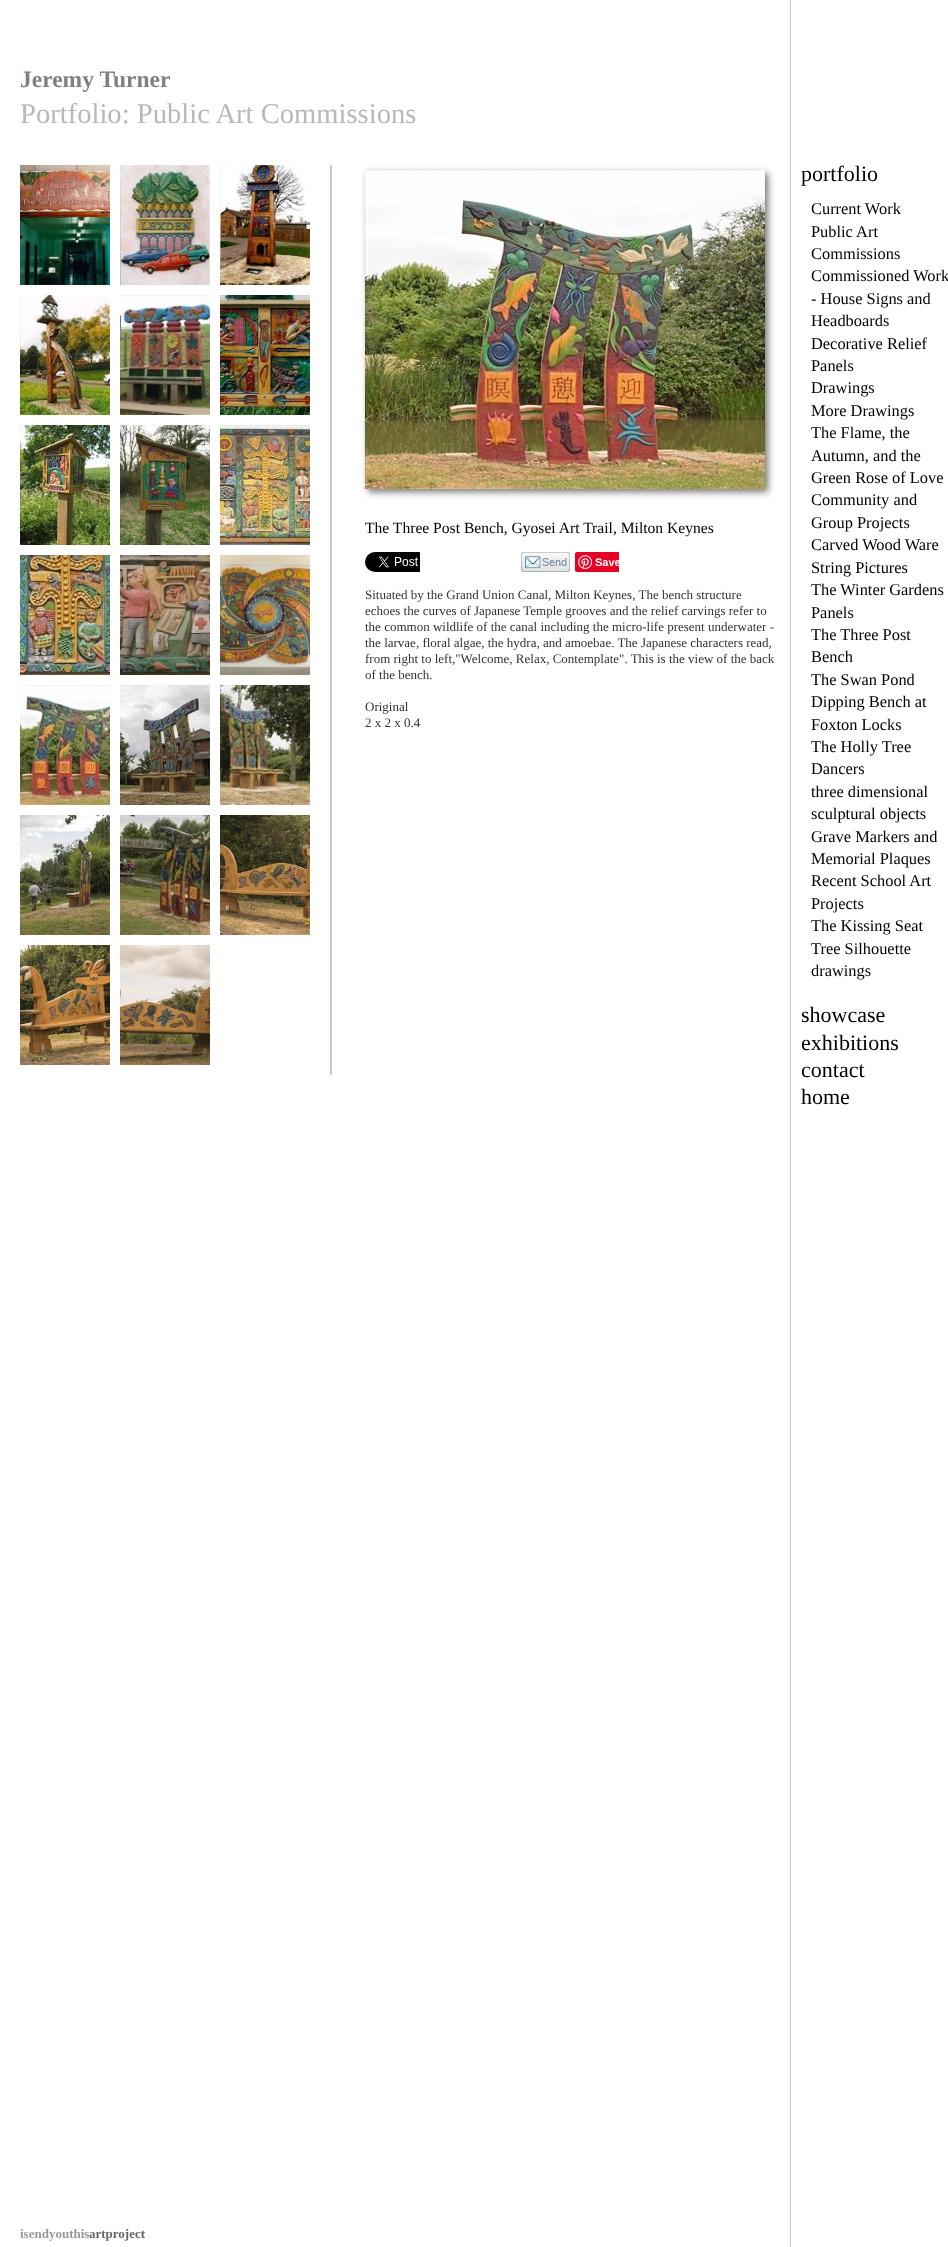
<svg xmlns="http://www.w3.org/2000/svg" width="948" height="2247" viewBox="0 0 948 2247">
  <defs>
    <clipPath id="clip1"><path d="M575 552h44v20H575z"/></clipPath>
  </defs>
  <rect width="100%" height="100%" fill="#fff"/>
  <path d="M330 165h2v910H330z" fill="#ccc"/>
  <image x="20" y="165" width="90" height="120" href="img/1.png"/>
  <image x="120" y="165" width="90" height="120" href="img/2.png"/>
  <image x="220" y="165" width="90" height="120" href="img/3.png"/>
  <image x="20" y="295" width="90" height="120" href="img/4.png"/>
  <image x="120" y="295" width="90" height="120" href="img/5.png"/>
  <image x="220" y="295" width="90" height="120" href="img/6.png"/>
  <image x="20" y="425" width="90" height="120" href="img/7.png"/>
  <image x="120" y="425" width="90" height="120" href="img/8.png"/>
  <image x="220" y="425" width="90" height="120" href="img/9.png"/>
  <image x="20" y="555" width="90" height="120" href="img/10.png"/>
  <image x="120" y="555" width="90" height="120" href="img/11.png"/>
  <image x="220" y="555" width="90" height="120" href="img/12.png"/>
  <image x="20" y="685" width="90" height="120" href="img/13.png"/>
  <image x="120" y="685" width="90" height="120" href="img/14.png"/>
  <image x="220" y="685" width="90" height="120" href="img/15.png"/>
  <image x="20" y="815" width="90" height="120" href="img/16.png"/>
  <image x="120" y="815" width="90" height="120" href="img/17.png"/>
  <image x="220" y="815" width="90" height="120" href="img/18.png"/>
  <image x="20" y="945" width="90" height="120" href="img/19.png"/>
  <image x="120" y="945" width="90" height="120" href="img/20.png"/>
  <path d="M368 173h400v319H368z" fill="#777" filter="blur(3.5px)"/>
  <image x="365" y="170" width="400" height="319" href="img/21.png"/>
  <image x="365" y="552" width="55" height="20" href="img/22.png"/>
  <image x="521" y="552" width="49" height="20" href="img/23.png"/>
  <path d="M577 552H619V572H577C576 572 575 571 575 570V554C575 553 576 552 577 552Z" fill="#e60023"/>
  <image x="578" y="555" width="14" height="14" href="img/24.png"/>
  <path d="M790 0h1v2247H790z" fill="#ccc"/>
  <text x="20" y="87" font-family="Liberation Serif" font-size="23.5" font-weight="bold" fill="#808080">Jeremy Turner</text>
  <text x="20" y="123" font-family="Liberation Serif" font-size="28.6" fill="#b8b8b8">Portfolio: Public Art Commissions</text>
  <text x="365" y="533" font-family="Liberation Serif" font-size="15.6" fill="#000">The Three Post Bench, Gyosei Art Trail, Milton Keynes</text>
  <g clip-path="url(#clip1)">
    <text x="595" y="566" font-family="Liberation Sans" font-size="11" font-weight="bold" fill="#fff">Save</text>
  </g>
  <g font-family="Liberation Serif" font-size="13" fill="#333">
    <text x="365" y="599">Situated by the Grand Union Canal, Milton Keynes, The bench structure</text>
    <text x="365" y="615">echoes the curves of Japanese Temple grooves and the relief carvings refer to</text>
    <text x="365" y="631">the common wildlife of the canal including the micro-life present underwater -</text>
    <text x="365" y="647">the larvae, floral algae, the hydra, and amoebae. The Japanese characters read,</text>
    <text x="365" y="663">from right to left,"Welcome, Relax, Contemplate". This is the view of the back</text>
    <text x="365" y="679">of the bench.</text>
    <text x="365" y="711">Original</text>
    <text x="365" y="727">2 x 2 x 0.4</text>
  </g>
  <text x="20" y="2238" font-family="Liberation Serif" font-size="13" font-weight="bold" fill="#999">isendyouthis</text>
  <text x="89" y="2238" font-family="Liberation Serif" font-size="13" font-weight="bold" fill="#666">artproject</text>
  <text x="801" y="181" font-family="Liberation Serif" font-size="22" fill="#000">portfolio</text>
  <g font-family="Liberation Serif" font-size="16.4" fill="#000">
    <text x="811" y="214">Current Work</text>
    <text x="811" y="237">Public Art</text>
    <text x="811" y="259">Commissions</text>
    <text x="811" y="281">Commissioned Work</text>
    <text x="811" y="304">- House Signs and</text>
    <text x="811" y="326">Headboards</text>
    <text x="811" y="349">Decorative Relief</text>
    <text x="811" y="371">Panels</text>
    <text x="811" y="393">Drawings</text>
    <text x="811" y="416">More Drawings</text>
    <text x="811" y="438">The Flame, the</text>
    <text x="811" y="461">Autumn, and the</text>
    <text x="811" y="483">Green Rose of Love</text>
    <text x="811" y="505">Community and</text>
    <text x="811" y="528">Group Projects</text>
    <text x="811" y="550">Carved Wood Ware</text>
    <text x="811" y="573">String Pictures</text>
    <text x="811" y="595">The Winter Gardens</text>
    <text x="811" y="618">Panels</text>
    <text x="811" y="640">The Three Post</text>
    <text x="811" y="662">Bench</text>
    <text x="811" y="685">The Swan Pond</text>
    <text x="811" y="707">Dipping Bench at</text>
    <text x="811" y="730">Foxton Locks</text>
    <text x="811" y="752">The Holly Tree</text>
    <text x="811" y="774">Dancers</text>
    <text x="811" y="797">three dimensional</text>
    <text x="811" y="819">sculptural objects</text>
    <text x="811" y="842">Grave Markers and</text>
    <text x="811" y="864">Memorial Plaques</text>
    <text x="811" y="886">Recent School Art</text>
    <text x="811" y="909">Projects</text>
    <text x="811" y="931">The Kissing Seat</text>
    <text x="811" y="954">Tree Silhouette</text>
    <text x="811" y="976">drawings</text>
  </g>
  <g font-family="Liberation Serif" font-size="22" fill="#000">
    <text x="801" y="1022">showcase</text>
    <text x="801" y="1050">exhibitions</text>
    <text x="801" y="1077">contact</text>
    <text x="801" y="1104">home</text>
  </g>
</svg>
